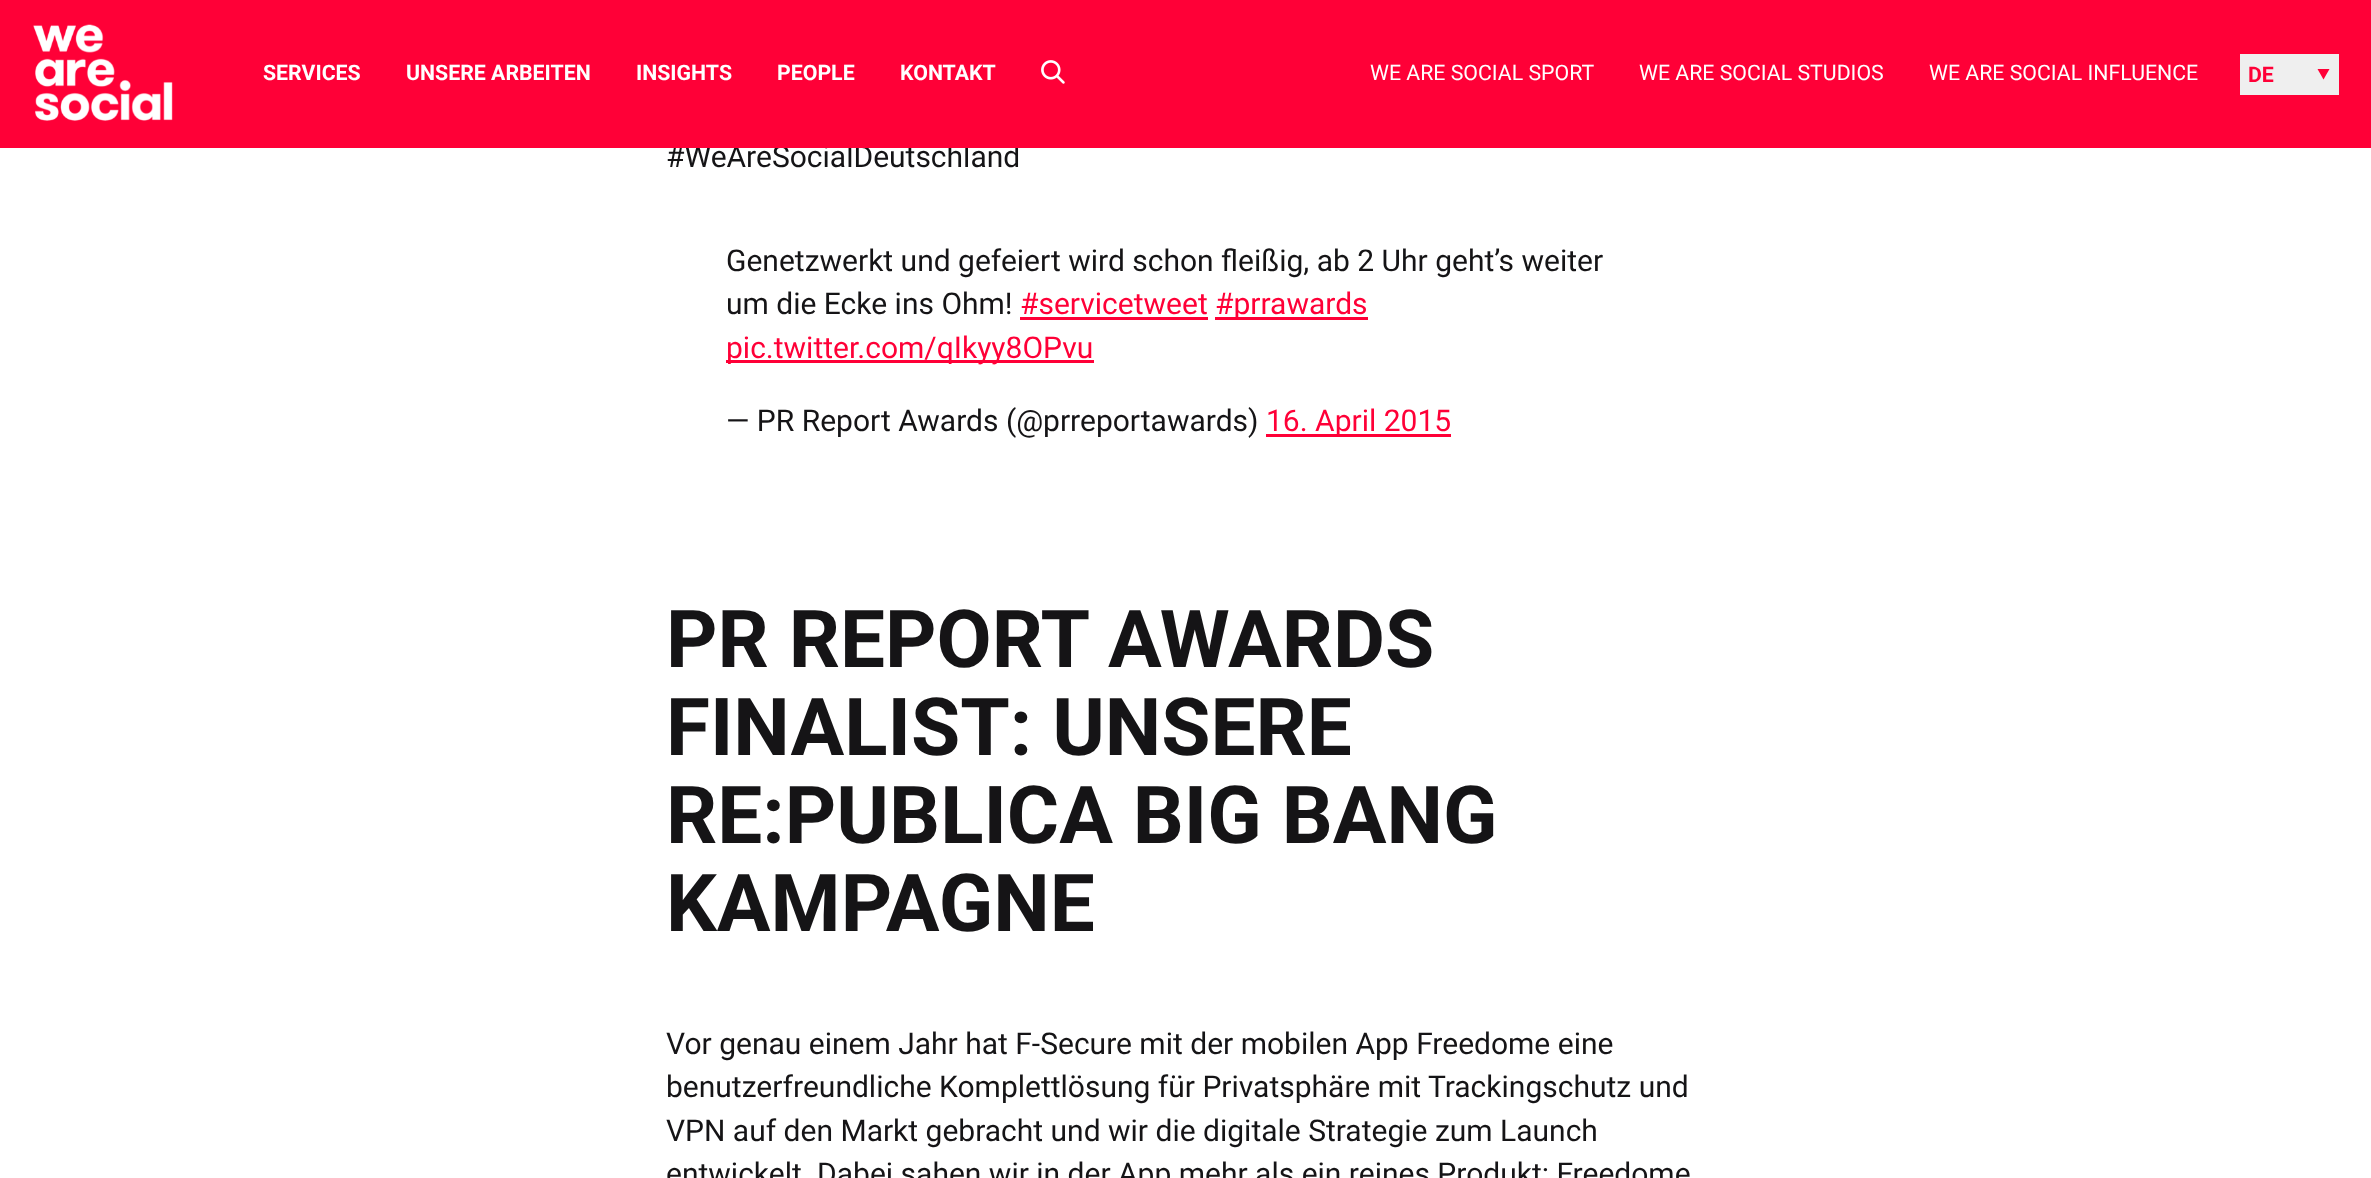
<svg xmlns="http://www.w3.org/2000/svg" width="2371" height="1178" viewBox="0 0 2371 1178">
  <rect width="100%" height="100%" fill="#fff"/>
  <path d="M1020 317h188v3H1020z" fill="#ff0037"/>
  <path d="M1215 317h153v3H1215z" fill="#ff0037"/>
  <path d="M726 360h368v3H726z" fill="#ff0037"/>
  <path d="M1266 434h185v3H1266z" fill="#ff0037"/>
  <text x="666" y="167" font-family="Roboto" font-size="30" fill="#151416">#WeAreSocialDeutschland</text>
  <path d="M0 0h2371v148H0z" fill="#ff0037"/>
  <path d="M2240 54h99v41H2240z" fill="#efefef"/>
  <path d="M2317.5 69H2329.5L2323.5 79.5Z" fill="#ff0037"/>
  <text x="2248" y="82" font-family="Roboto" font-size="21.3" font-weight="bold" fill="#ff0037">DE</text>
  <g font-family="Roboto" font-size="21.3" fill="#fff">
    <text x="1929" y="80">WE ARE SOCIAL INFLUENCE</text>
    <text x="1639" y="80">WE ARE SOCIAL STUDIOS</text>
    <text x="1370" y="80">WE ARE SOCIAL SPORT</text>
  </g>
  <image x="1041" y="60" width="24" height="24" href="img/2.png"/>
  <g font-family="Roboto" font-size="21.3" font-weight="bold" fill="#fff">
    <text x="900" y="80">KONTAKT</text>
    <text x="777" y="80">PEOPLE</text>
    <text x="636" y="80">INSIGHTS</text>
    <text x="406" y="80">UNSERE ARBEITEN</text>
    <text x="263" y="80">SERVICES</text>
  </g>
  <image x="33" y="24" width="140" height="97" href="img/1.png"/>
  <g font-family="Roboto" font-size="30" fill="#151416">
    <text x="726" y="271">Genetzwerkt und gefeiert wird schon fleißig, ab 2 Uhr geht’s weiter</text>
    <text x="726" y="314">um die Ecke ins Ohm!</text>
  </g>
  <g font-family="Roboto" font-size="30" fill="#ff0037">
    <text x="1020" y="314">#servicetweet</text>
    <text x="1215" y="314">#prrawards</text>
    <text x="726" y="358">pic.twitter.com/qIkyy8OPvu</text>
  </g>
  <text x="726" y="431" font-family="Roboto" font-size="30" fill="#151416">— PR Report Awards (@prreportawards)</text>
  <text x="1266" y="431" font-family="Roboto" font-size="30" fill="#ff0037">16. April 2015</text>
  <g font-family="Roboto" font-size="80" font-weight="bold" fill="#151416">
    <text x="666" y="667">PR REPORT AWARDS</text>
    <text x="666" y="755">FINALIST: UNSERE</text>
    <text x="666" y="843">RE:PUBLICA BIG BANG</text>
    <text x="666" y="931">KAMPAGNE</text>
  </g>
  <g font-family="Roboto" font-size="30" fill="#151416">
    <text x="666" y="1054">Vor genau einem Jahr hat F-Secure mit der mobilen App Freedome eine</text>
    <text x="666" y="1097">benutzerfreundliche Komplettlösung für Privatsphäre mit Trackingschutz und</text>
    <text x="666" y="1141">VPN auf den Markt gebracht und wir die digitale Strategie zum Launch</text>
    <text x="666" y="1184">entwickelt. Dabei sahen wir in der App mehr als ein reines Produkt: Freedome</text>
  </g>
</svg>
